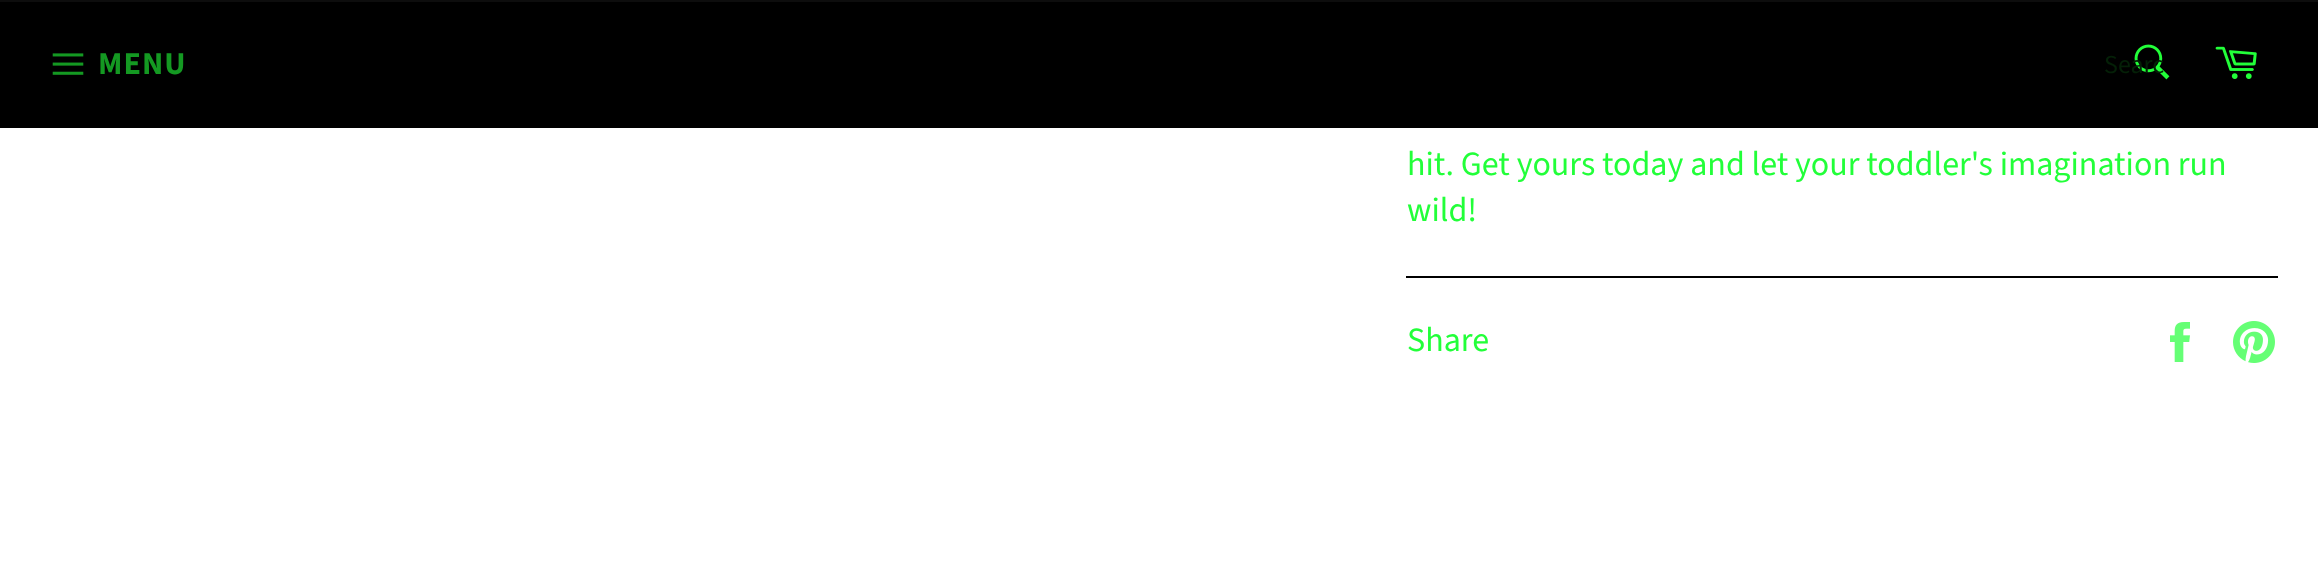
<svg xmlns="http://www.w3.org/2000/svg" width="2318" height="579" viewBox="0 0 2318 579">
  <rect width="100%" height="100%" fill="#fff"/>
  <path d="M0 2h2318v126H0z" fill="#000"/>
  <path d="M0 0h2318v2H0z" fill="#0d0d0d"/>
  <image x="52" y="53" width="32" height="22" href="img/1.png"/>
  <image x="2134" y="44" width="36" height="36" href="img/2.png"/>
  <image x="2215" y="46" width="42" height="33" href="img/3.png"/>
  <path d="M1406 276h872v2H1406z" fill="#000"/>
  <image x="2170" y="322" width="20" height="40" href="img/4.png"/>
  <image x="2233" y="321" width="42" height="42" href="img/5.png"/>
  <text x="98" y="74" font-family="Source Sans Pro" font-size="32" font-weight="bold" letter-spacing="1" fill="#149922">MENU</text>
  <text x="2104" y="73" font-family="Source Sans Pro" font-size="26" fill="#042007">Searc</text>
  <g font-family="Source Sans Pro" font-size="34" fill="#22ff39">
    <text x="1407" y="175">hit. Get yours today and let your toddler's imagination run</text>
    <text x="1407" y="221">wild!</text>
    <text x="1407" y="351">Share</text>
  </g>
</svg>
